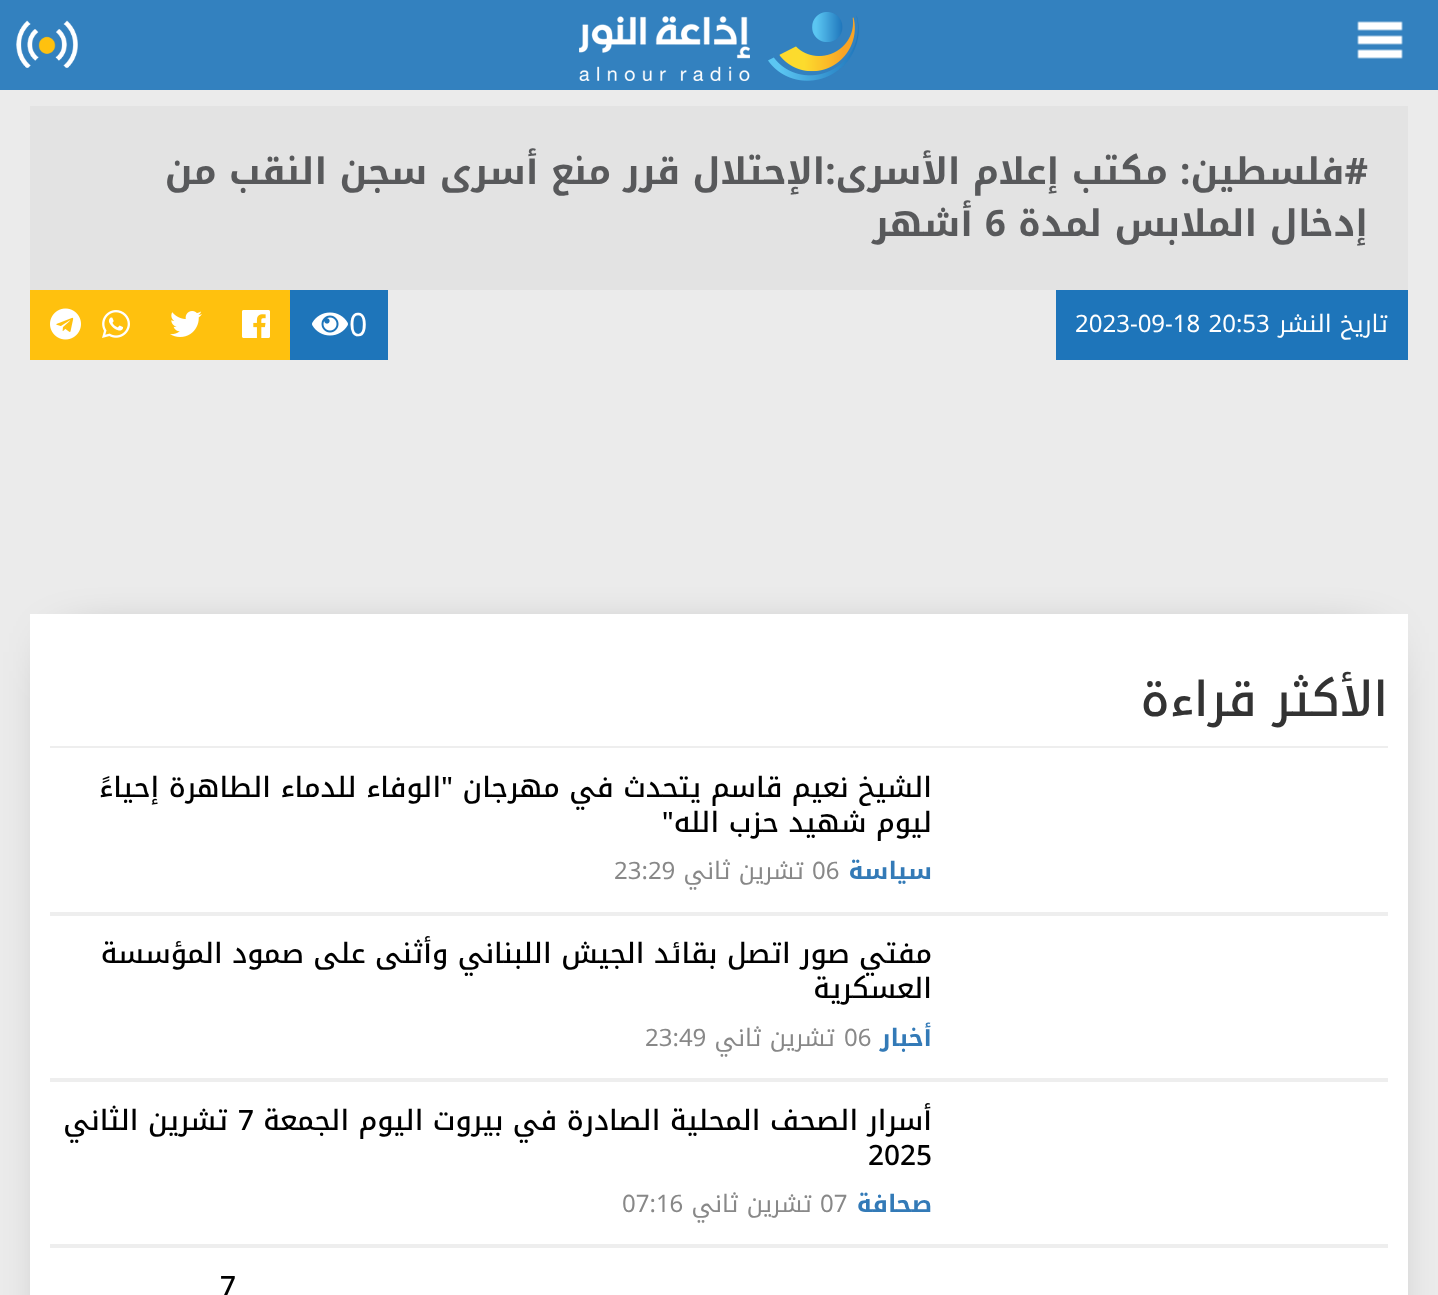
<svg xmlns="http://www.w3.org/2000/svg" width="1438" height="1295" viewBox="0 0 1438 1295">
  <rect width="100%" height="100%" fill="#ebebeb"/>
  <path d="M0 0h1438v90H0z" fill="#3381bf"/>
  <image x="1357" y="21" width="46" height="38" href="img/1.png"/>
  <image x="579" y="12" width="280" height="69" href="img/2.png"/>
  <image x="16" y="20" width="62" height="48" href="img/3.png"/>
  <path d="M30 106h1378v184H30z" fill="#e3e3e3"/>
  <path d="M1056 290h352v70H1056z" fill="#1e75ba"/>
  <path d="M30 290h260v70H30z" fill="#ffc10e"/>
  <image x="242" y="310" width="28" height="28" href="img/4.png"/>
  <path d="M290 290h98v70H290z" fill="#1e75ba"/>
  <image x="312" y="312" width="36" height="24" href="img/5.png"/>
  <image x="170" y="311" width="32" height="26" href="img/6.png"/>
  <image x="102" y="310" width="28" height="28" href="img/7.png"/>
  <image x="50" y="308" width="31" height="32" href="img/8.png"/>
  <path d="M68 652h1302v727H68z" fill="#00000099" filter="blur(28px)"/>
  <path d="M30 614h1378v681H30z" fill="#fff"/>
  <path d="M50 746h1338v2H50z" fill="#eee"/>
  <path d="M50 912h1338v4H50z" fill="#eee"/>
  <path d="M50 1078h1338v4H50z" fill="#eee"/>
  <path d="M50 1244h1338v4H50z" fill="#eee"/>
  <g font-family="Noto Kufi Arabic" font-size="36.4" font-weight="bold" direction="rtl" fill="#58595b">
    <text x="1368" y="184">#فلسطين: مكتب إعلام الأسرى:الإحتلال قرر منع أسرى سجن النقب من</text>
    <text x="1368" y="236">إدخال الملابس لمدة</text>
  </g>
  <text x="985" y="236" font-family="Noto Kufi Arabic" font-size="36.4" font-weight="bold" fill="#58595b">6</text>
  <text x="973" y="236" font-family="Noto Kufi Arabic" font-size="36.4" font-weight="bold" direction="rtl" fill="#58595b">أشهر</text>
  <text x="1388" y="332" font-family="Noto Kufi Arabic" font-size="24" direction="rtl" fill="#fff">تاريخ النشر</text>
  <text x="1075" y="332" font-family="Noto Kufi Arabic" font-size="24" fill="#fff">2023-09-18 20:53</text>
  <text x="349" y="336" font-family="Noto Kufi Arabic" font-size="32" fill="#fff">0</text>
  <text x="1388" y="716" font-family="Noto Kufi Arabic" font-size="48" font-weight="500" direction="rtl" fill="#333">الأكثر قراءة</text>
  <g font-family="Noto Kufi Arabic" font-size="28" font-weight="500" direction="rtl" fill="#000">
    <text x="932" y="797">الشيخ نعيم قاسم يتحدث في مهرجان "الوفاء للدماء الطاهرة إحياءً</text>
    <text x="932" y="832">ليوم شهيد حزب الله"</text>
  </g>
  <text x="932" y="879" font-family="Noto Kufi Arabic" font-size="24" font-weight="bold" direction="rtl" fill="#337ab7">سياسة</text>
  <text x="812" y="879" font-family="Noto Kufi Arabic" font-size="24" fill="#888">06</text>
  <text x="804" y="879" font-family="Noto Kufi Arabic" font-size="24" direction="rtl" fill="#888">تشرين ثاني</text>
  <text x="614" y="879" font-family="Noto Kufi Arabic" font-size="24" fill="#888">23:29</text>
  <g font-family="Noto Kufi Arabic" font-size="28" font-weight="500" direction="rtl" fill="#000">
    <text x="932" y="963">مفتي صور اتصل بقائد الجيش اللبناني وأثنى على صمود المؤسسة</text>
    <text x="932" y="998">العسكرية</text>
  </g>
  <text x="932" y="1046" font-family="Noto Kufi Arabic" font-size="24" font-weight="bold" direction="rtl" fill="#337ab7">أخبار</text>
  <text x="844" y="1046" font-family="Noto Kufi Arabic" font-size="24" fill="#888">06</text>
  <text x="835" y="1046" font-family="Noto Kufi Arabic" font-size="24" direction="rtl" fill="#888">تشرين ثاني</text>
  <text x="645" y="1046" font-family="Noto Kufi Arabic" font-size="24" fill="#888">23:49</text>
  <text x="932" y="1130" font-family="Noto Kufi Arabic" font-size="28" font-weight="500" direction="rtl" fill="#000">أسرار الصحف المحلية الصادرة في بيروت اليوم الجمعة</text>
  <text x="238" y="1130" font-family="Noto Kufi Arabic" font-size="28" font-weight="500" fill="#000">7</text>
  <text x="228" y="1130" font-family="Noto Kufi Arabic" font-size="28" font-weight="500" direction="rtl" fill="#000">تشرين الثاني</text>
  <text x="868" y="1165" font-family="Noto Kufi Arabic" font-size="28" font-weight="500" fill="#000">2025</text>
  <text x="932" y="1212" font-family="Noto Kufi Arabic" font-size="24" font-weight="bold" direction="rtl" fill="#337ab7">صحافة</text>
  <text x="820" y="1212" font-family="Noto Kufi Arabic" font-size="24" fill="#888">07</text>
  <text x="812" y="1212" font-family="Noto Kufi Arabic" font-size="24" direction="rtl" fill="#888">تشرين ثاني</text>
  <text x="622" y="1212" font-family="Noto Kufi Arabic" font-size="24" fill="#888">07:16</text>
  <text x="220" y="1296" font-family="Noto Kufi Arabic" font-size="28" font-weight="500" fill="#000">7</text>
</svg>
